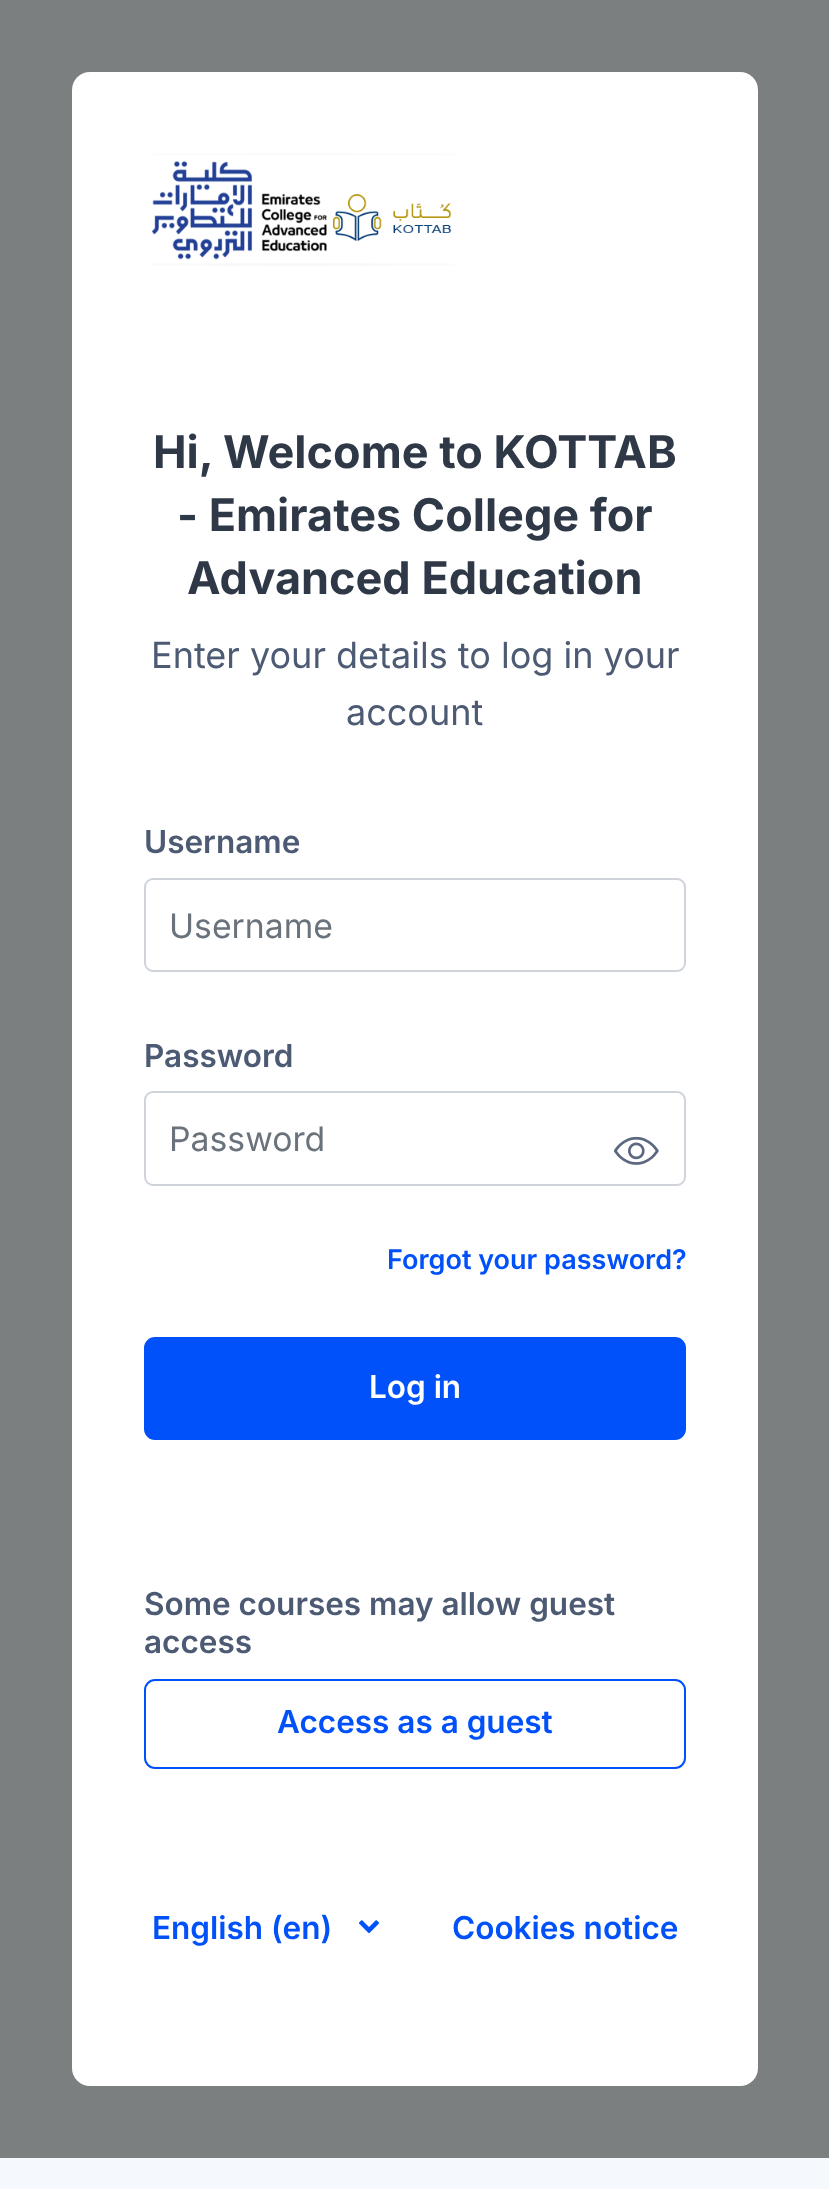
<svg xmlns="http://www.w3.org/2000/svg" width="829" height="2189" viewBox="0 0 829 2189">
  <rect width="100%" height="100%" fill="#f5f9fd"/>
  <path d="M0 0h829v2158H0z" fill="#7c7f80"/>
  <rect x="72" y="72" width="686" height="2014" rx="18" fill="#fff"/>
  <image x="150" y="153" width="305" height="113" href="img/1.png"/>
  <rect x="145" y="879" width="540" height="92" rx="8" fill="none" stroke="#ced4da" stroke-width="2"/>
  <rect x="145" y="1092" width="540" height="93" rx="8" fill="none" stroke="#ced4da" stroke-width="2"/>
  <image x="613" y="1136" width="46" height="29" href="img/2.png"/>
  <rect x="145" y="1338" width="540" height="101" rx="10" fill="#0051f9" stroke="#0051f9" stroke-width="2"/>
  <rect x="145" y="1680" width="540" height="88" rx="10" fill="none" stroke="#0051f9" stroke-width="2"/>
  <image x="358" y="1920" width="22" height="14" href="img/3.png"/>
  <g font-family="Inter" font-size="45" font-weight="bold" fill="#2f3847">
    <text x="153" y="468">Hi, Welcome to KOTTAB</text>
    <text x="177" y="531">- Emirates College for</text>
    <text x="187" y="594">Advanced Education</text>
  </g>
  <g font-family="Inter" font-size="36" fill="#4c5a73">
    <text x="151" y="668">Enter your details to log in your</text>
    <text x="346" y="725">account</text>
  </g>
  <text x="144" y="853" font-family="Inter" font-size="31.5" font-weight="600" fill="#4c5a73">Username</text>
  <text x="169" y="938" font-family="Inter" font-size="33.75" fill="#6a737b">Username</text>
  <text x="144" y="1067" font-family="Inter" font-size="31.5" font-weight="600" fill="#4c5a73">Password</text>
  <text x="169" y="1151" font-family="Inter" font-size="33.75" fill="#6a737b">Password</text>
  <text x="387" y="1269" font-family="Inter" font-size="27" font-weight="600" fill="#0051f9">Forgot your password?</text>
  <text x="369" y="1398" font-family="Inter" font-size="31.5" font-weight="600" fill="#fff">Log in</text>
  <g font-family="Inter" font-size="31.5" font-weight="600" fill="#4c5a73">
    <text x="144" y="1615">Some courses may allow guest</text>
    <text x="144" y="1653">access</text>
  </g>
  <g font-family="Inter" font-size="31.5" font-weight="600" fill="#0051f9">
    <text x="277" y="1733">Access as a guest</text>
    <text x="152" y="1939">English (en)</text>
    <text x="452" y="1939">Cookies notice</text>
  </g>
</svg>
